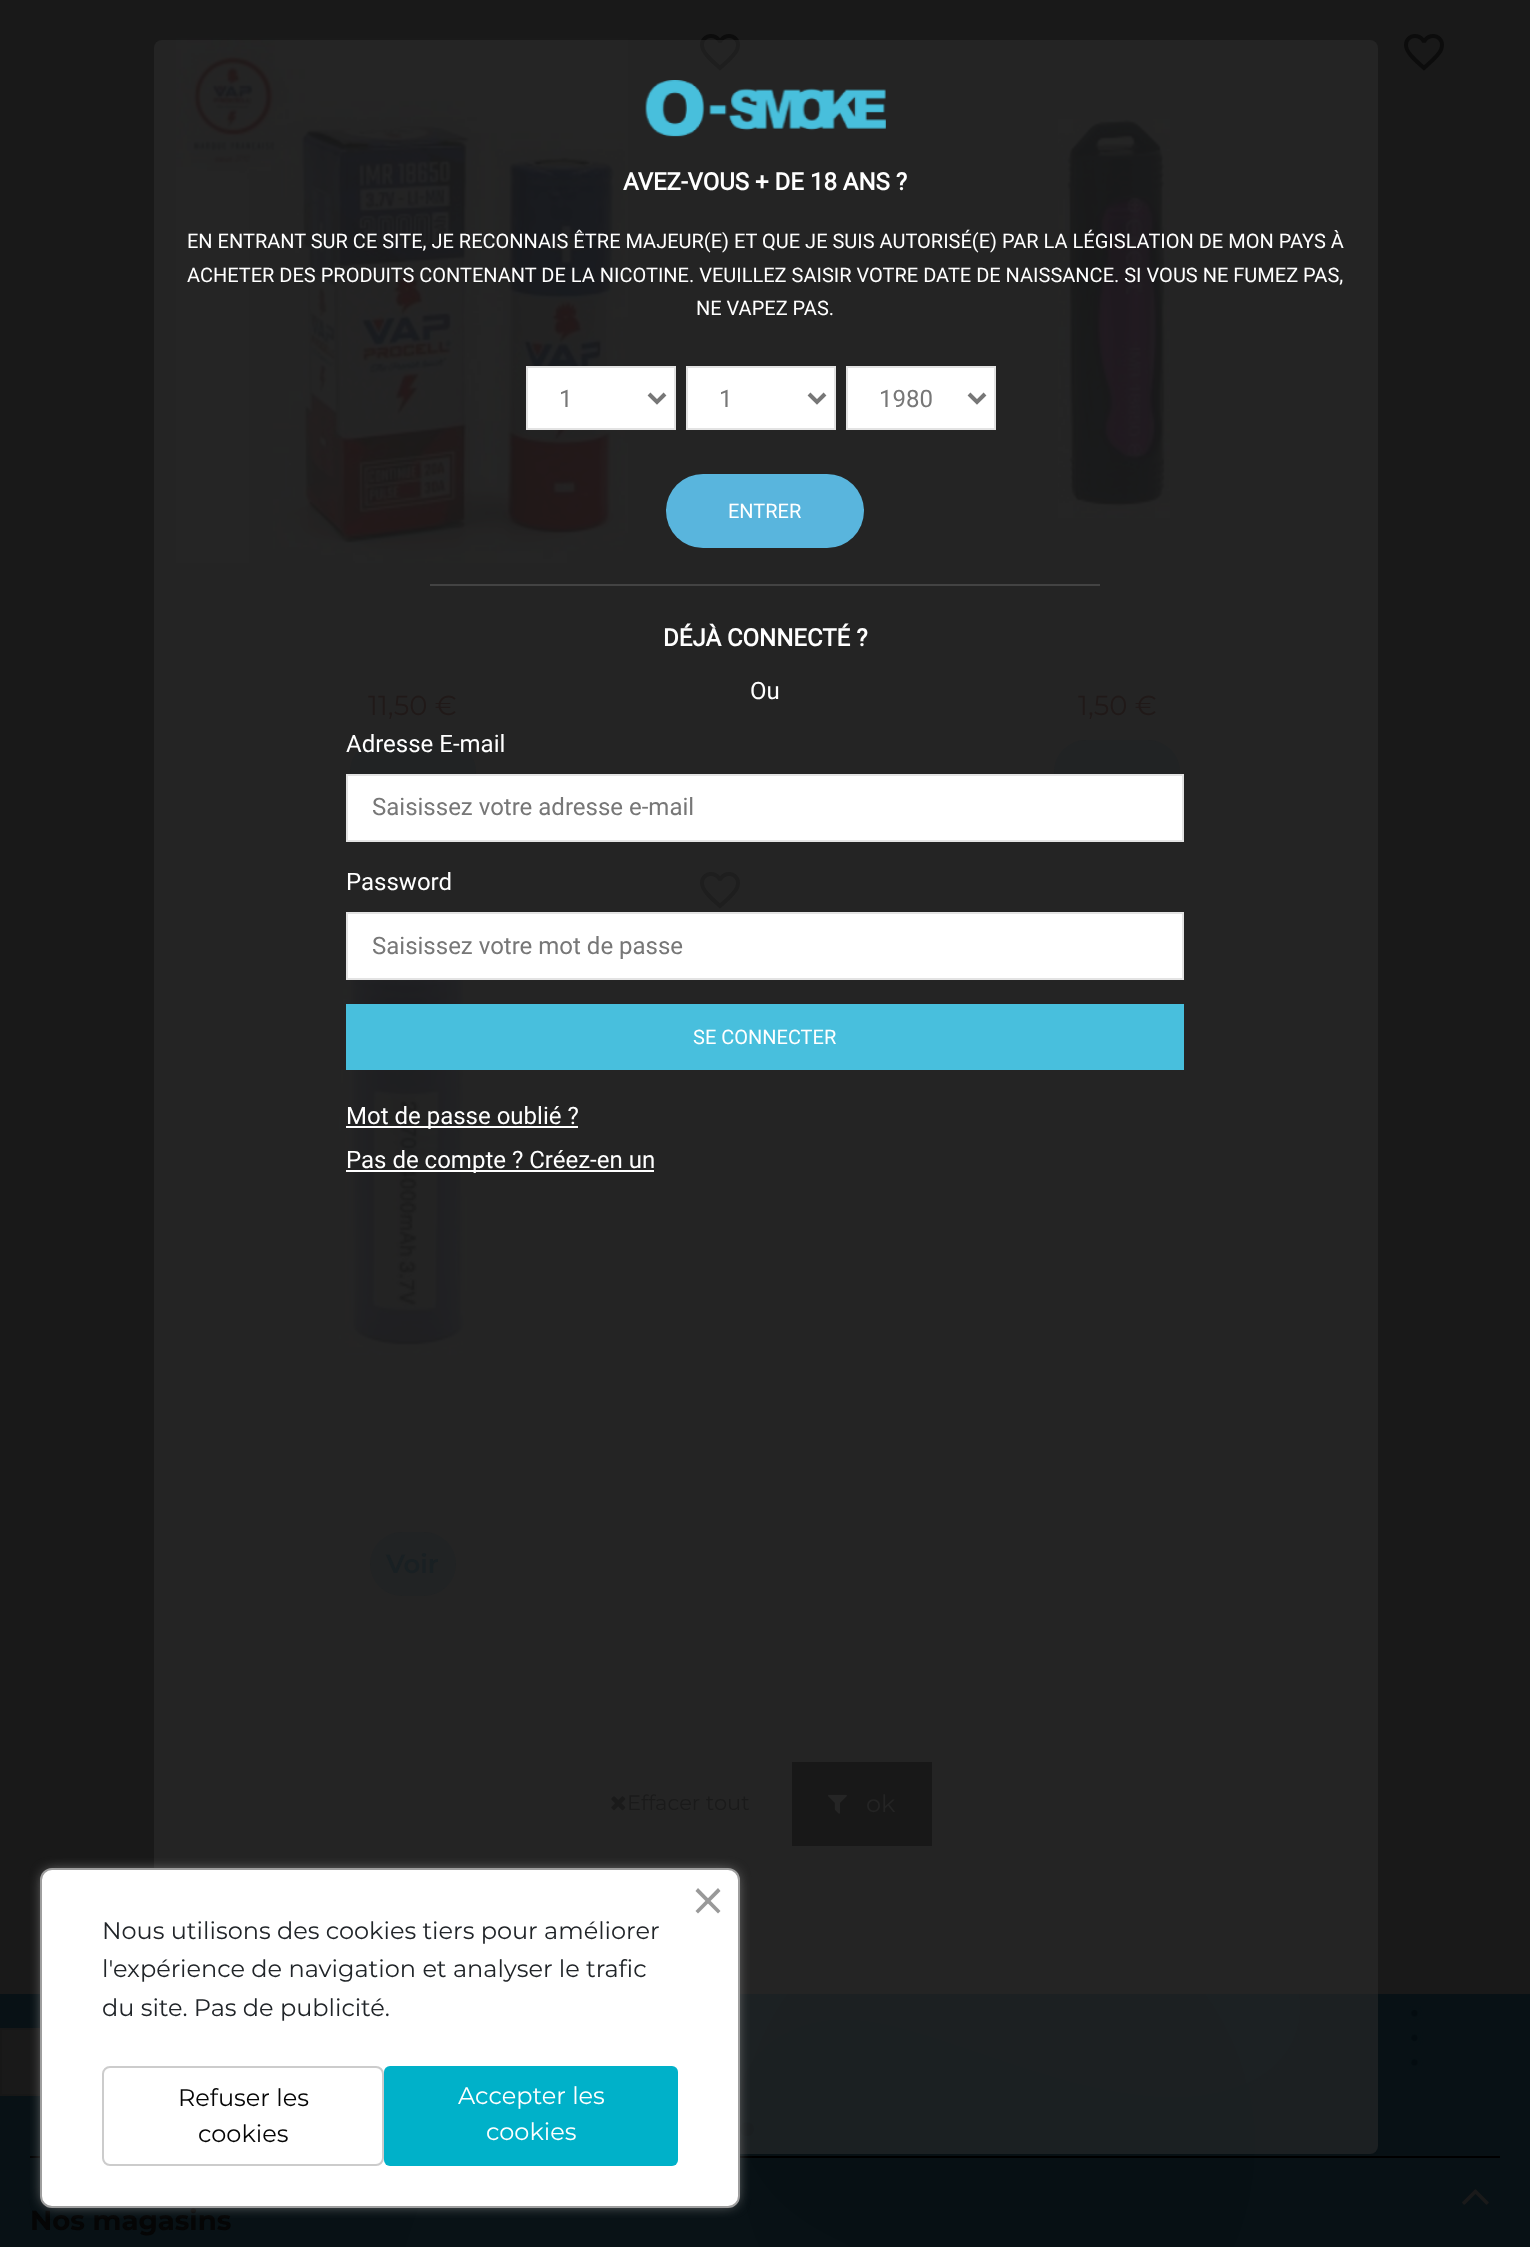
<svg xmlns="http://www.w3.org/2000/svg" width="1530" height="2247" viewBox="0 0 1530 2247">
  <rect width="100%" height="100%" fill="#191919"/>
  <image x="176" y="38" width="452" height="525" href="img/2.png"/>
  <image x="700" y="34" width="40" height="37" href="img/3.png"/>
  <rect x="350" y="740" width="126" height="64" rx="32" fill="#121618"/>
  <image x="1404" y="34" width="40" height="37" href="img/3.png"/>
  <image x="1058" y="119" width="112" height="399" href="img/4.png"/>
  <rect x="1054" y="740" width="126" height="64" rx="32" fill="#121618"/>
  <image x="700" y="872" width="40" height="37" href="img/3.png"/>
  <image x="339" y="941" width="128" height="414" href="img/5.png"/>
  <rect x="370" y="1532" width="86" height="64" rx="32" fill="#121618"/>
  <image x="611" y="1796" width="15" height="15" href="img/6.png"/>
  <path d="M792 1762h140v84H792z" fill="#000"/>
  <image x="828" y="1794" width="19" height="20" href="img/7.png"/>
  <image x="0" y="1994" width="1530" height="253" href="img/8.png"/>
  <path d="M2 2030h38v64H2z" fill="#191919"/>
  <path d="M1 2029h454v66H1z" fill="none" stroke="#171717" stroke-width="2"/>
  <path d="M30 2156h1470v2H30z" fill="#000"/>
  <image x="1462" y="2189" width="27" height="16" href="img/9.png"/>
  <g font-family="Montserrat" font-size="27.5" fill="#110300">
    <text x="368" y="715">11,50 €</text>
    <text x="1078" y="715">1,50 €</text>
  </g>
  <text x="386" y="1573" font-family="Montserrat" font-size="26" font-weight="600" fill="#021016">Voir</text>
  <text x="627" y="1810" font-family="Montserrat" font-size="21" fill="#050505">Effacer tout</text>
  <text x="866" y="1812" font-family="Montserrat" font-size="24" fill="#191919">ok</text>
  <rect x="154" y="40" width="1224" height="2114" rx="8" fill="#2f2f2f80"/>
  <path d="M346 1170h308v2H346z" fill="#fff"/>
  <text x="346" y="1168" font-family="Roboto" font-size="24" fill="#fff">Pas de compte ? Créez-en un</text>
  <path d="M346 1126h232v2H346z" fill="#fff"/>
  <text x="346" y="1124" font-family="Roboto" font-size="24" fill="#fff">Mot de passe oublié ?</text>
  <path d="M346 1004h838v66H346z" fill="#48bfdd"/>
  <text x="693" y="1044" font-family="Roboto" font-size="20" fill="#fff">SE CONNECTER</text>
  <path d="M347 913h836v66H347z" fill="#fff" stroke="#e3e3e3" stroke-width="2"/>
  <text x="372" y="954" font-family="Roboto" font-size="24" fill="#777">Saisissez votre mot de passe</text>
  <text x="346" y="890" font-family="Roboto" font-size="24" fill="#fff">Password</text>
  <path d="M347 775h836v66H347z" fill="#fff" stroke="#e3e3e3" stroke-width="2"/>
  <text x="372" y="815" font-family="Roboto" font-size="24" fill="#777">Saisissez votre adresse e-mail</text>
  <g font-family="Roboto" font-size="24" fill="#fff">
    <text x="346" y="752">Adresse E-mail</text>
    <text x="750" y="699">Ou</text>
  </g>
  <text x="663" y="646" font-family="Roboto" font-size="24" font-weight="bold" fill="#fff">DÉJÀ CONNECTÉ ?</text>
  <path d="M430 584h670v2H430z" fill="#434343"/>
  <rect x="666" y="474" width="198" height="74" rx="37" fill="#59b5dd"/>
  <g font-family="Roboto" font-size="20" fill="#fff">
    <text x="728" y="518">ENTRER</text>
    <text x="696" y="315">NE VAPEZ PAS.</text>
    <text x="187" y="282">ACHETER DES PRODUITS CONTENANT DE LA NICOTINE. VEUILLEZ SAISIR VOTRE DATE DE NAISSANCE. SI VOUS NE FUMEZ PAS,</text>
    <text x="187" y="248">EN ENTRANT SUR CE SITE, JE RECONNAIS ÊTRE MAJEUR(E) ET QUE JE SUIS AUTORISÉ(E) PAR LA LÉGISLATION DE MON PAYS À</text>
  </g>
  <text x="623" y="190" font-family="Roboto" font-size="24" font-weight="bold" fill="#fff">AVEZ-VOUS + DE 18 ANS ?</text>
  <image x="645" y="80" width="241" height="57" href="img/1.png"/>
  <path d="M847 367h148v62H847z" fill="#fff" stroke="#e3e3e3" stroke-width="2"/>
  <text x="879" y="407" font-family="Roboto" font-size="24" fill="#777">1980</text>
  <path d="M969 394L977 402L985 394" fill="none" stroke="#777" stroke-width="4"/>
  <path d="M687 367h148v62H687z" fill="#fff" stroke="#e3e3e3" stroke-width="2"/>
  <text x="719" y="407" font-family="Roboto" font-size="24" fill="#777">1</text>
  <path d="M809 394L817 402L825 394" fill="none" stroke="#777" stroke-width="4"/>
  <path d="M527 367h148v62H527z" fill="#fff" stroke="#e3e3e3" stroke-width="2"/>
  <text x="559" y="407" font-family="Roboto" font-size="24" fill="#777">1</text>
  <path d="M649 394L657 402L665 394" fill="none" stroke="#777" stroke-width="4"/>
  <text x="30" y="2230" font-family="Montserrat" font-size="27.5" font-weight="bold" fill="#050505">Nos magasins</text>
  <rect x="44" y="1872" width="692" height="332" rx="8" fill="#9e9e9e" filter="blur(7px)"/>
  <rect x="41" y="1869" width="698" height="338" rx="11" fill="#fff" stroke="#9e9e9e" stroke-width="2"/>
  <path d="M695.5 1911L718 1888L720.5 1891L698 1913.5Z" fill="#999"/>
  <path d="M698 1888L720.5 1911L718 1913.5L695.5 1891Z" fill="#999"/>
  <g font-family="Montserrat" font-size="24" fill="#212529">
    <text x="102" y="1939">Nous utilisons des cookies tiers pour améliorer</text>
    <text x="102" y="1977">l'expérience de navigation et analyser le trafic</text>
    <text x="102" y="2016">du site. Pas de publicité.</text>
  </g>
  <rect x="103" y="2067" width="280" height="98" rx="7" fill="none" stroke="#ccc" stroke-width="2"/>
  <g font-family="Montserrat" font-size="24" fill="#050505">
    <text x="178" y="2106">Refuser les</text>
    <text x="198" y="2142">cookies</text>
  </g>
  <rect x="384" y="2066" width="294" height="100" rx="6" fill="#00b1c9"/>
  <g font-family="Montserrat" font-size="24" fill="#fff">
    <text x="458" y="2104">Accepter les</text>
    <text x="486" y="2140">cookies</text>
  </g>
</svg>
